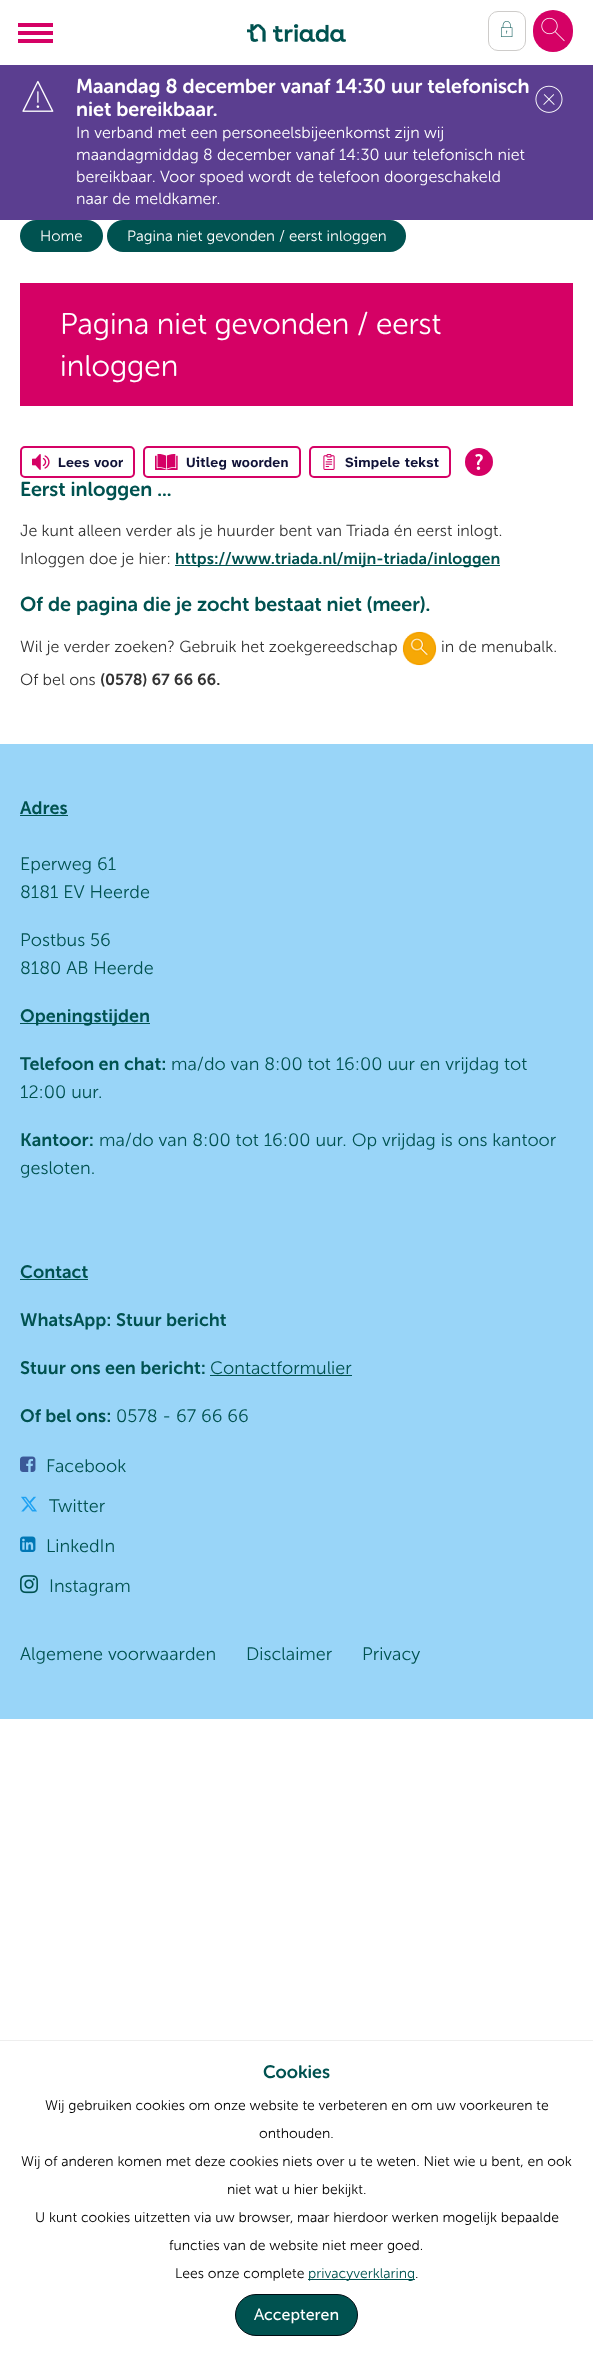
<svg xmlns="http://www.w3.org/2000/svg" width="593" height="2356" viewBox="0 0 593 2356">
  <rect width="100%" height="100%" fill="#fff"/>
  <path d="M18 23h35v4H18z" fill="#d50165"/>
  <path d="M18 31h35v4H18z" fill="#d50165"/>
  <path d="M18 39h35v4H18z" fill="#d50165"/>
  <image x="247" y="24" width="99" height="18" href="img/1.png"/>
  <rect x="488.5" y="11.5" width="37" height="39" rx="9.5" fill="none" stroke="#ceccca"/>
  <image x="501" y="21" width="12" height="16" href="img/2.png"/>
  <rect x="533" y="10" width="40" height="42" rx="20" fill="#d50165"/>
  <image x="541" y="17" width="24" height="25" href="img/3.png"/>
  <path d="M0 65h593v155H0z" fill="#5b3e90"/>
  <image x="22" y="80" width="32" height="32" href="img/4.png"/>
  <image x="535" y="85" width="28" height="28" href="img/5.png"/>
  <rect x="20" y="220" width="83" height="32" rx="16" fill="#005250"/>
  <rect x="107" y="220" width="299" height="32" rx="16" fill="#005250"/>
  <path d="M20 283h553v123H20z" fill="#d50165"/>
  <rect x="21" y="447" width="113" height="30" rx="4" fill="none" stroke="#d50165" stroke-width="2"/>
  <image x="32" y="454" width="18" height="16" href="img/6.png"/>
  <rect x="144" y="447" width="156" height="30" rx="4" fill="none" stroke="#d50165" stroke-width="2"/>
  <image x="155" y="454" width="23" height="16" href="img/7.png"/>
  <rect x="310" y="447" width="140" height="30" rx="4" fill="none" stroke="#d50165" stroke-width="2"/>
  <image x="323" y="454" width="12" height="16" href="img/8.png"/>
  <circle cx="479" cy="462" r="14" fill="#d50165"/>
  <image x="475" y="454" width="8" height="16" href="img/9.png"/>
  <path d="M175 565h325v1H175z" fill="#005250"/>
  <image x="402" y="631" width="35" height="35" href="img/10.png"/>
  <path d="M0 744h593v975H0z" fill="#99d5f8"/>
  <path d="M20 815h48v1H20z" fill="#005250"/>
  <path d="M20 1023h130v1H20z" fill="#005250"/>
  <path d="M20 1279h68v1H20z" fill="#005250"/>
  <path d="M210 1375h142v1H210z" fill="#005250"/>
  <image x="20" y="1456" width="16" height="16" href="img/11.png"/>
  <image x="21" y="1496" width="16" height="16" href="img/12.png"/>
  <image x="20" y="1536" width="16" height="16" href="img/13.png"/>
  <image x="20" y="1575" width="18" height="19" href="img/14.png"/>
  <path d="M0 2040h593v1H0z" fill="#eee"/>
  <path d="M308 2279h107v1H308z" fill="#005250"/>
  <rect x="235.5" y="2294.5" width="122" height="41" rx="20.5" fill="#005250" stroke="#000c13"/>
  <g font-family="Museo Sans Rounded" font-size="20" font-weight="600" fill="#fff">
    <text x="76" y="93">Maandag 8 december vanaf 14:30 uur telefonisch</text>
    <text x="76" y="116">niet bereikbaar.</text>
  </g>
  <g font-family="'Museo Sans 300'" font-size="16" font-weight="300" fill="#fff">
    <text x="76" y="138">In verband met een personeelsbijeenkomst zijn wij</text>
    <text x="76" y="160">maandagmiddag 8 december vanaf 14:30 uur telefonisch niet</text>
    <text x="76" y="182">bereikbaar. Voor spoed wordt de telefoon doorgeschakeld</text>
    <text x="76" y="204">naar de meldkamer.</text>
  </g>
  <g font-family="'Museo Sans 300'" font-size="15" font-weight="300" fill="#fff">
    <text x="40" y="241">Home</text>
    <text x="127" y="241">Pagina niet gevonden / eerst inloggen</text>
  </g>
  <g font-family="Museo Sans Rounded" font-size="30" font-weight="300" fill="#fff">
    <text x="60" y="334">Pagina niet gevonden / eerst</text>
    <text x="60" y="376">inloggen</text>
  </g>
  <g font-family="Atkinson Hyperlegible Next" font-size="14" font-weight="bold" letter-spacing="0.25" fill="#101237">
    <text x="58" y="467">Lees voor</text>
    <text x="186" y="467">Uitleg woorden</text>
    <text x="345" y="467">Simpele tekst</text>
  </g>
  <text x="20" y="496" font-family="Museo Sans Rounded" font-size="20" font-weight="600" fill="#005250">Eerst inloggen ...</text>
  <g font-family="'Museo Sans 300'" font-size="16" font-weight="300" fill="#333">
    <text x="20" y="536">Je kunt alleen verder als je huurder bent van Triada én eerst inlogt.</text>
    <text x="20" y="564">Inloggen doe je hier:</text>
  </g>
  <text x="175" y="564" font-family="'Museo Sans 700'" font-size="16" font-weight="600" fill="#005250">https://www.triada.nl/mijn-triada/inloggen</text>
  <text x="20" y="611" font-family="Museo Sans Rounded" font-size="20" font-weight="600" fill="#005250">Of de pagina die je zocht bestaat niet (meer).</text>
  <g font-family="'Museo Sans 300'" font-size="16" font-weight="300" fill="#333">
    <text x="20" y="652">Wil je verder zoeken? Gebruik het zoekgereedschap</text>
    <text x="441" y="652">in de menubalk.</text>
    <text x="20" y="685">Of bel ons</text>
  </g>
  <text x="100" y="685" font-family="'Museo Sans 700'" font-size="16" font-weight="600" fill="#333">(0578) 67 66 66.</text>
  <text x="20" y="814" font-family="'Museo Sans 700'" font-size="18" font-weight="600" fill="#005250">Adres</text>
  <g font-family="'Museo Sans 300'" font-size="18" font-weight="300" fill="#005250">
    <text x="20" y="870">Eperweg 61</text>
    <text x="20" y="898">8181 EV Heerde</text>
    <text x="20" y="946">Postbus 56</text>
    <text x="20" y="974">8180 AB Heerde</text>
  </g>
  <g font-family="'Museo Sans 700'" font-size="18" font-weight="600" fill="#005250">
    <text x="20" y="1022">Openingstijden</text>
    <text x="20" y="1070">Telefoon en chat:</text>
  </g>
  <g font-family="'Museo Sans 300'" font-size="18" font-weight="300" fill="#005250">
    <text x="171" y="1070">ma/do van 8:00 tot 16:00 uur en vrijdag tot</text>
    <text x="20" y="1098">12:00 uur.</text>
  </g>
  <text x="20" y="1146" font-family="'Museo Sans 700'" font-size="18" font-weight="600" fill="#005250">Kantoor:</text>
  <g font-family="'Museo Sans 300'" font-size="18" font-weight="300" fill="#005250">
    <text x="99" y="1146">ma/do van 8:00 tot 16:00 uur. Op vrijdag is ons kantoor</text>
    <text x="20" y="1174">gesloten.</text>
  </g>
  <g font-family="'Museo Sans 700'" font-size="18" font-weight="600" fill="#005250">
    <text x="20" y="1278">Contact</text>
    <text x="20" y="1326">WhatsApp: Stuur bericht</text>
    <text x="20" y="1374">Stuur ons een bericht:</text>
  </g>
  <text x="210" y="1374" font-family="'Museo Sans 300'" font-size="18" font-weight="300" fill="#005250">Contactformulier</text>
  <text x="20" y="1422" font-family="'Museo Sans 700'" font-size="18" font-weight="600" fill="#005250">Of bel ons:</text>
  <g font-family="'Museo Sans 300'" font-size="18" font-weight="300" fill="#005250">
    <text x="116" y="1422">0578 - 67 66 66</text>
    <text x="46" y="1472">Facebook</text>
    <text x="49" y="1512">Twitter</text>
    <text x="46" y="1552">LinkedIn</text>
    <text x="49" y="1592">Instagram</text>
    <text x="20" y="1660">Algemene voorwaarden</text>
    <text x="246" y="1660">Disclaimer</text>
    <text x="362" y="1660">Privacy</text>
  </g>
  <text x="263" y="2078" font-family="Museo Sans Rounded" font-size="18" font-weight="600" fill="#005250">Cookies</text>
  <g font-family="'Museo Sans 300'" font-size="14" font-weight="300" fill="#000">
    <text x="45" y="2110">Wij gebruiken cookies om onze website te verbeteren en om uw voorkeuren te</text>
    <text x="259" y="2138">onthouden.</text>
    <text x="21" y="2166">Wij of anderen komen met deze cookies niets over u te weten. Niet wie u bent, en ook</text>
    <text x="227" y="2194">niet wat u hier bekijkt.</text>
    <text x="35" y="2222">U kunt cookies uitzetten via uw browser, maar hierdoor werken mogelijk bepaalde</text>
    <text x="169" y="2250">functies van de website niet meer goed.</text>
    <text x="175" y="2278">Lees onze complete</text>
  </g>
  <text x="308" y="2278" font-family="'Museo Sans 300'" font-size="14" font-weight="300" fill="#005250">privacyverklaring</text>
  <text x="415" y="2278" font-family="'Museo Sans 300'" font-size="14" font-weight="300" fill="#000">.</text>
  <text x="254" y="2320" font-family="Noto Sans" font-size="16" fill="#fff">A</text>
  <text x="264" y="2320" font-family="'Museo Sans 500'" font-size="16" fill="#fff">ccepteren</text>
</svg>
